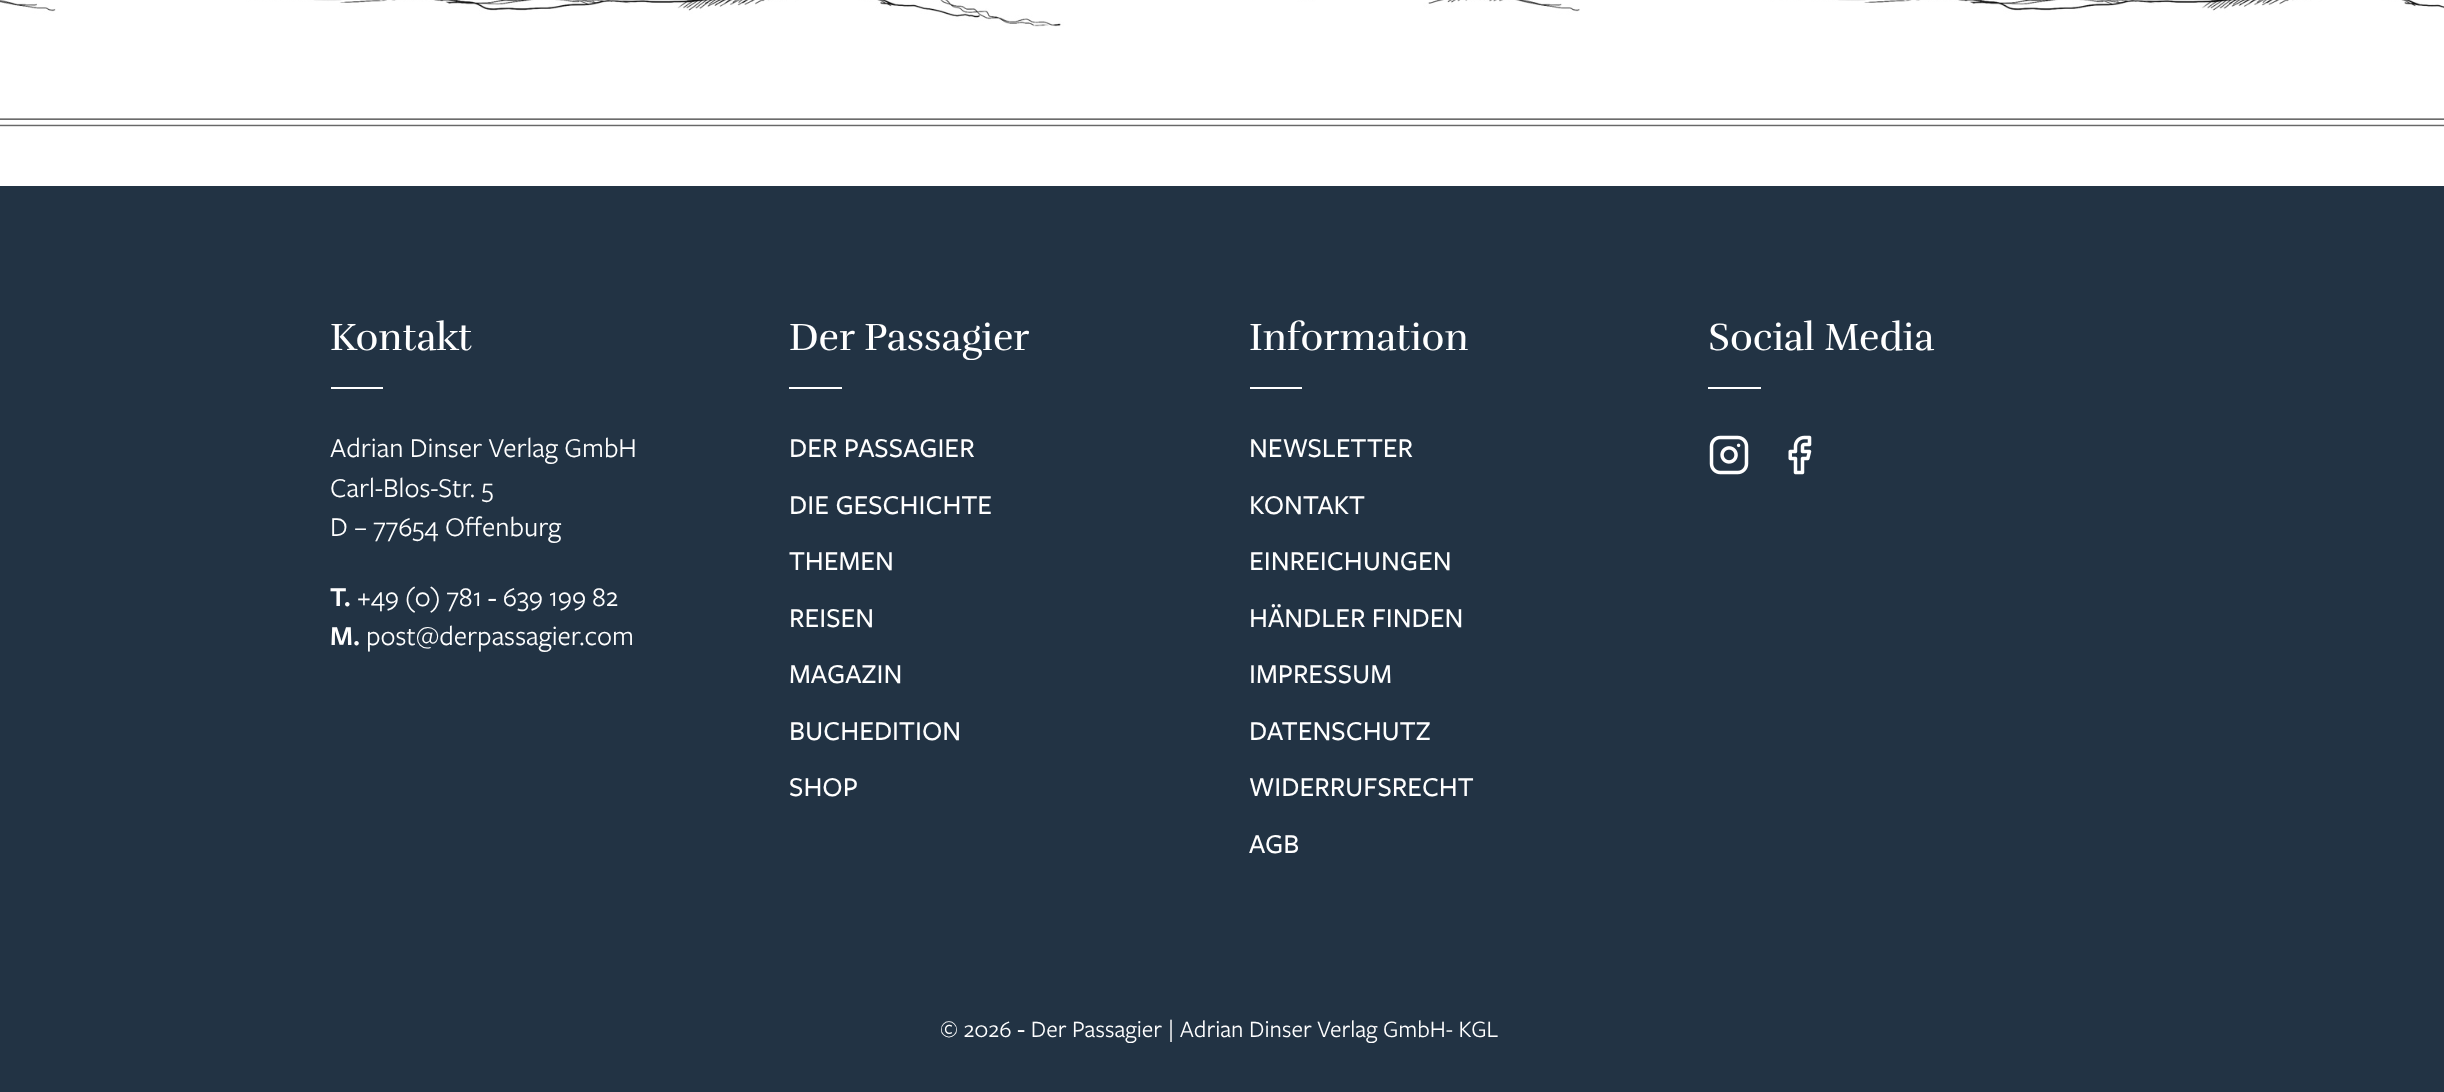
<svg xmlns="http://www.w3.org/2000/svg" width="2444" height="1092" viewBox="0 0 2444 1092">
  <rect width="100%" height="100%" fill="#fff"/>
  <image x="0" y="0" width="2444" height="127" href="img/1.png"/>
  <path d="M0 186h2444v906H0z" fill="#234"/>
  <path d="M331 387h52v2H331z" fill="#fff"/>
  <path d="M789 387h53v2H789z" fill="#fff"/>
  <path d="M1250 387h52v2H1250z" fill="#fff"/>
  <path d="M1708 387h53v2H1708z" fill="#fff"/>
  <image x="1709" y="435" width="40" height="40" href="img/2.png"/>
  <image x="1788" y="435" width="24" height="40" href="img/3.png"/>
  <text x="330" y="350" font-family="Rufina" font-size="38.75" fill="#fff">Kontakt</text>
  <g font-family="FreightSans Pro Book" font-size="28.25" fill="#fff">
    <text x="330" y="457">Adrian Dinser Verlag GmbH</text>
    <text x="330" y="497">Carl-Blos-Str. 5</text>
    <text x="330" y="536">D – 77654 Offenburg</text>
  </g>
  <text x="330" y="606" font-family="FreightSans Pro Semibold" font-size="28.25" font-weight="600" fill="#fff">T.</text>
  <text x="357" y="606" word-spacing="-0.75" font-family="FreightSans Pro Book" font-size="28.25" fill="#fff">+49 (0) 781 ‑ 639 199 82</text>
  <text x="330" y="645" font-family="FreightSans Pro Semibold" font-size="28.25" font-weight="600" fill="#fff">M.</text>
  <text x="366" y="645" font-family="FreightSans Pro Book" font-size="28.25" fill="#fff">post@derpassagier.com</text>
  <text x="789" y="350" font-family="Rufina" font-size="38.75" fill="#fff">Der Passagier</text>
  <g font-family="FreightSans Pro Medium" font-size="28.25" font-weight="500" fill="#fff">
    <text x="789" y="457">DER PASSAGIER</text>
    <text x="789" y="514">DIE GESCHICHTE</text>
    <text x="789" y="570">THEMEN</text>
    <text x="789" y="627">REISEN</text>
    <text x="789" y="683">MAGAZIN</text>
    <text x="789" y="740">BUCHEDITION</text>
    <text x="789" y="796">SHOP</text>
  </g>
  <text x="1249" y="350" font-family="Rufina" font-size="38.75" fill="#fff">Information</text>
  <g font-family="FreightSans Pro Medium" font-size="28.25" font-weight="500" fill="#fff">
    <text x="1249" y="457">NEWSLETTER</text>
    <text x="1249" y="514">KONTAKT</text>
    <text x="1249" y="570">EINREICHUNGEN</text>
    <text x="1249" y="627">HÄNDLER FINDEN</text>
    <text x="1249" y="683">IMPRESSUM</text>
    <text x="1249" y="740">DATENSCHUTZ</text>
    <text x="1249" y="796">WIDERRUFSRECHT</text>
    <text x="1249" y="853">AGB</text>
  </g>
  <text x="1708" y="350" font-family="Rufina" font-size="38.75" fill="#fff">Social Media</text>
  <text x="940" y="1037" font-family="FreightSans Pro Book" font-size="24.5" fill="#fff">© 2026 ‑ Der Passagier | Adrian Dinser Verlag GmbH- KGL</text>
</svg>
